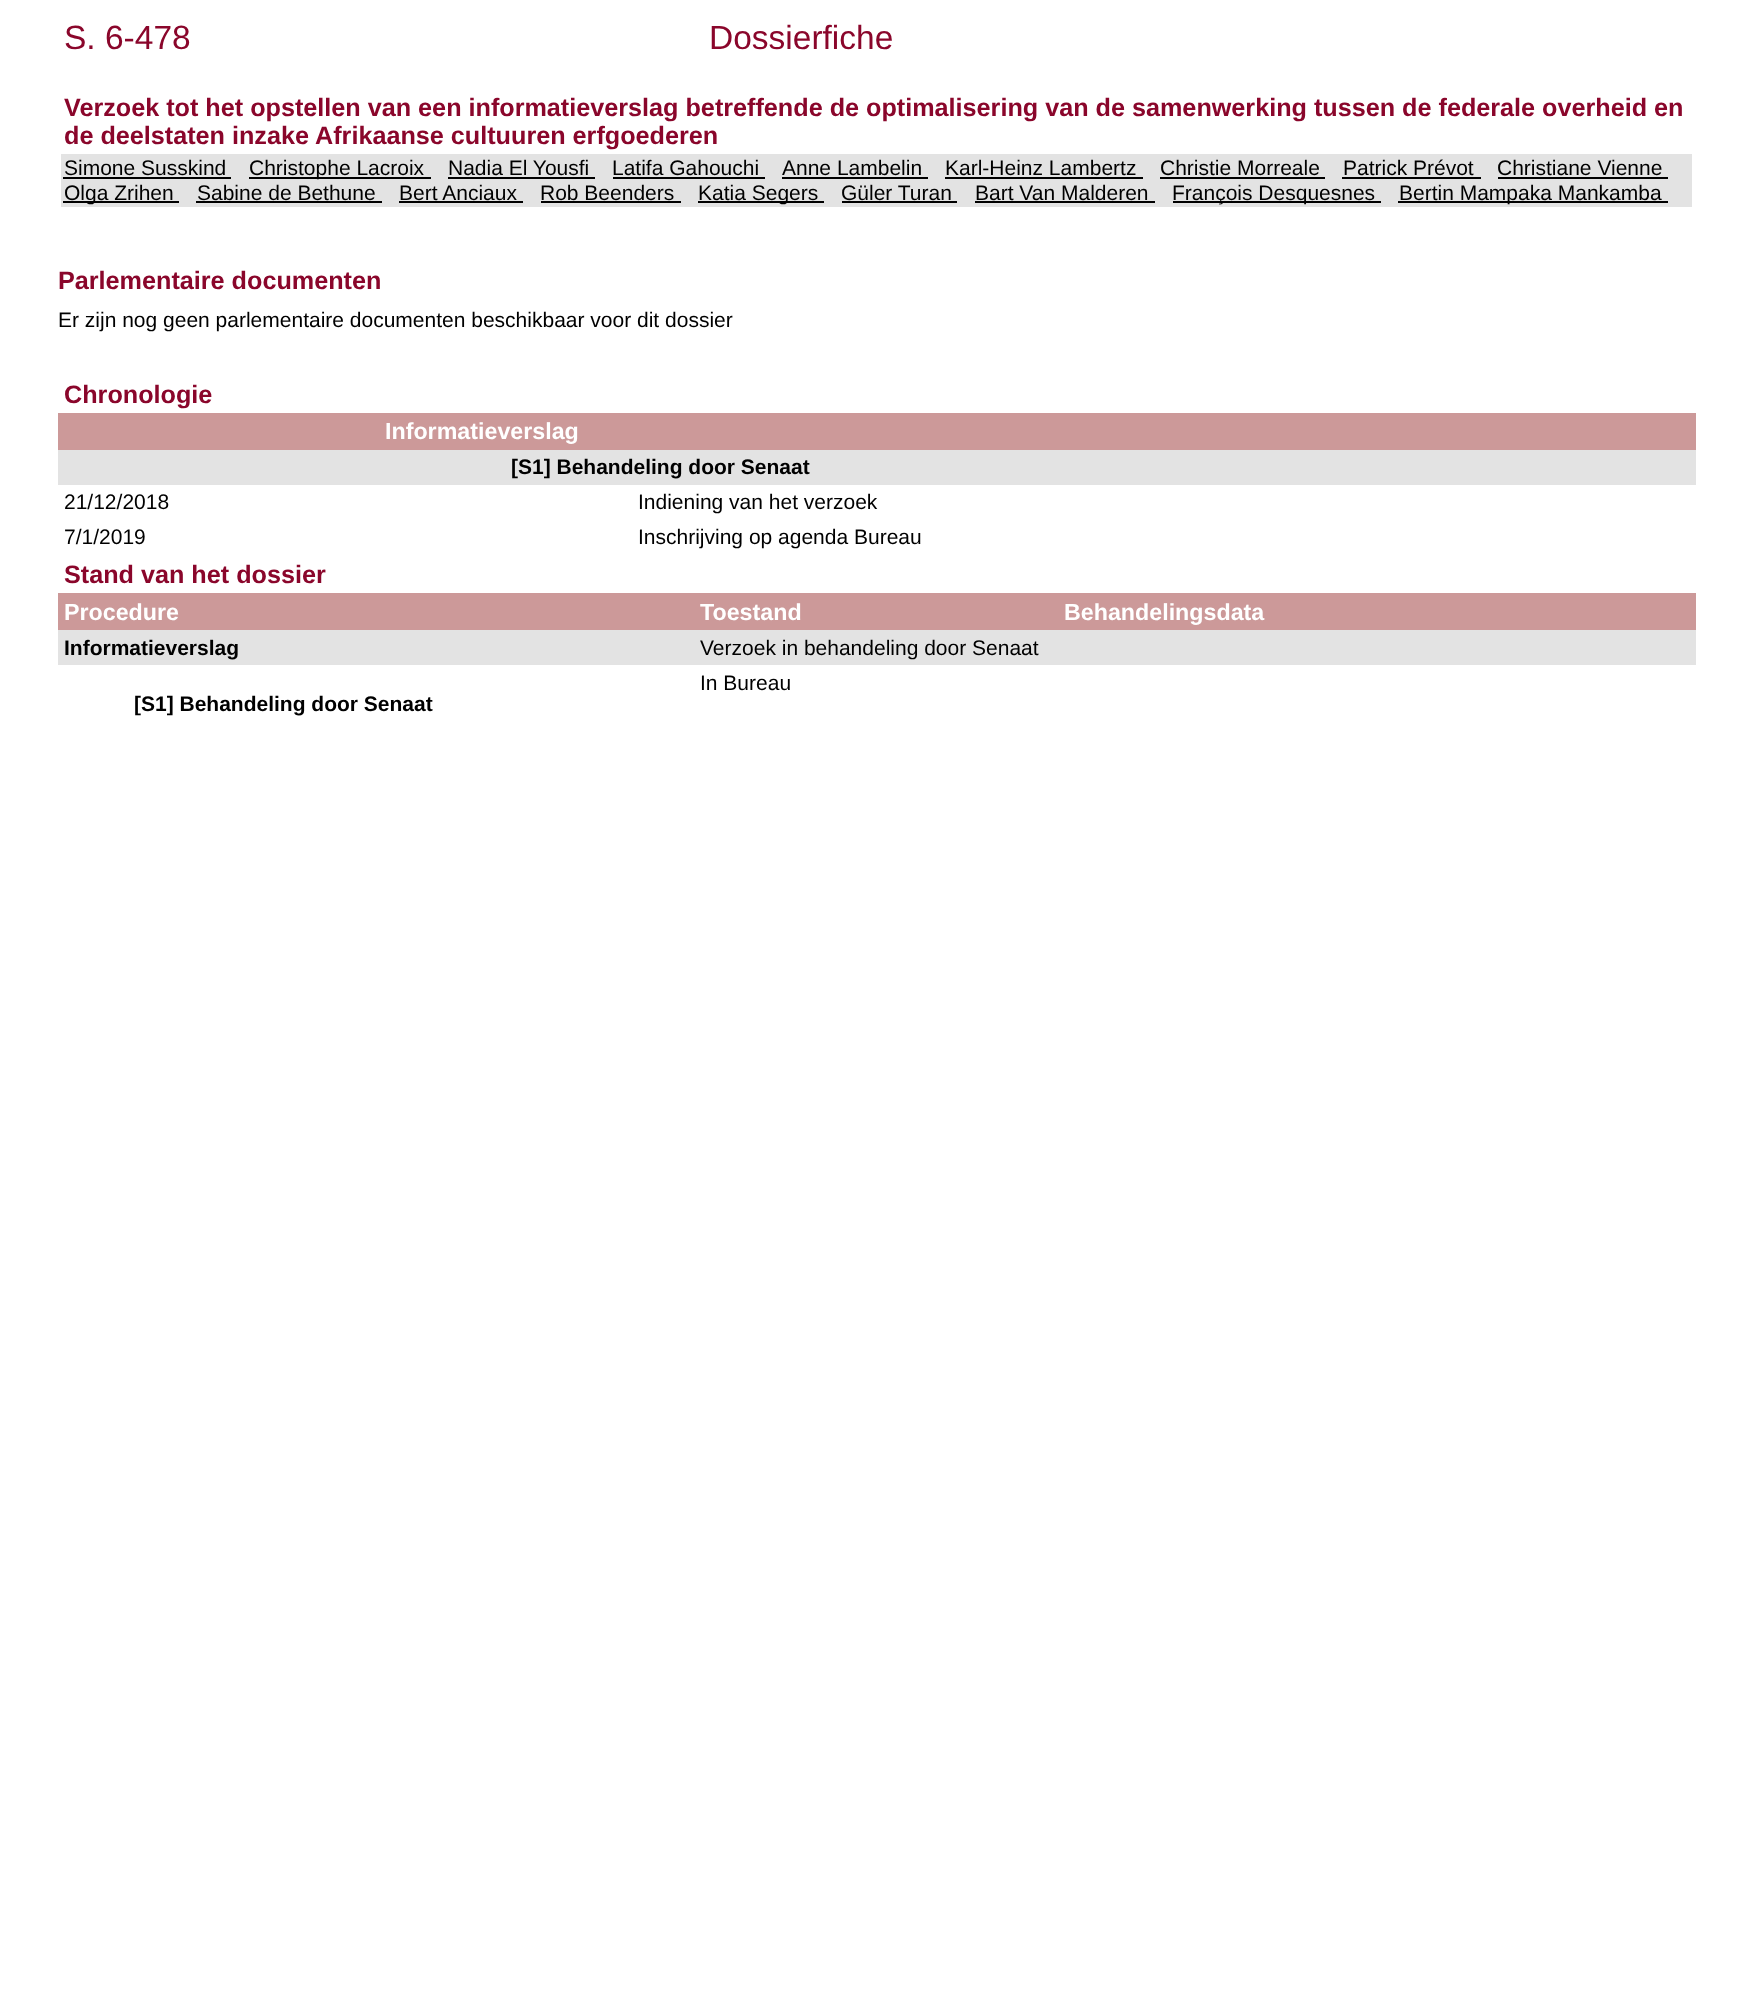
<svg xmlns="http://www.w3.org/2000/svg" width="1752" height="2000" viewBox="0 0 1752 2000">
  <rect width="100%" height="100%" fill="#fff"/>
  <path d="M61 154h1631v53H61z" fill="#e3e3e3"/>
  <path d="M63 177h168v2H63z" fill="#000"/>
  <path d="M249 177h182v2H249z" fill="#000"/>
  <path d="M448 177h147v2H448z" fill="#000"/>
  <path d="M613 177h152v2H613z" fill="#000"/>
  <path d="M782 177h146v2H782z" fill="#000"/>
  <path d="M945 177h198v2H945z" fill="#000"/>
  <path d="M1160 177h165v2H1160z" fill="#000"/>
  <path d="M1342 177h139v2H1342z" fill="#000"/>
  <path d="M1498 177h170v2H1498z" fill="#000"/>
  <path d="M63 201h116v2H63z" fill="#000"/>
  <path d="M196 201h186v2H196z" fill="#000"/>
  <path d="M399 201h124v2H399z" fill="#000"/>
  <path d="M541 201h140v2H541z" fill="#000"/>
  <path d="M698 201h126v2H698z" fill="#000"/>
  <path d="M842 201h115v2H842z" fill="#000"/>
  <path d="M975 201h180v2H975z" fill="#000"/>
  <path d="M1173 201h208v2H1173z" fill="#000"/>
  <path d="M1398 201h270v2H1398z" fill="#000"/>
  <path d="M58 413h1638v37H58z" fill="#c99"/>
  <path d="M58 450h1638v35H58z" fill="#e3e3e3"/>
  <path d="M58 593h1638v37H58z" fill="#c99"/>
  <path d="M58 630h1638v35H58z" fill="#e3e3e3"/>
  <g font-family="Liberation Sans" font-size="33.5" fill="#8a062b">
    <text x="64" y="49">S. 6-478</text>
    <text x="709" y="49">Dossierfiche</text>
  </g>
  <g font-family="Liberation Sans" font-size="25.2" font-weight="bold" fill="#8a062b">
    <text x="64" y="116">Verzoek tot het opstellen van een informatieverslag betreffende de optimalisering van de samenwerking tussen de federale overheid en</text>
    <text x="64" y="144">de deelstaten inzake Afrikaanse cultuuren erfgoederen</text>
  </g>
  <g font-family="Liberation Sans" font-size="21" fill="#000">
    <text x="64" y="175">Simone Susskind</text>
    <text x="249" y="175">Christophe Lacroix</text>
    <text x="448" y="175">Nadia El Yousfi</text>
    <text x="612" y="175">Latifa Gahouchi</text>
    <text x="782" y="175">Anne Lambelin</text>
    <text x="945" y="175">Karl-Heinz Lambertz</text>
    <text x="1160" y="175">Christie Morreale</text>
    <text x="1343" y="175">Patrick Prévot</text>
    <text x="1497" y="175">Christiane Vienne</text>
    <text x="64" y="200">Olga Zrihen</text>
    <text x="197" y="200">Sabine de Bethune</text>
    <text x="399" y="200">Bert Anciaux</text>
    <text x="540" y="200">Rob Beenders</text>
    <text x="698" y="200">Katia Segers</text>
    <text x="841" y="200">Güler Turan</text>
    <text x="975" y="200">Bart Van Malderen</text>
    <text x="1172" y="200">François Desquesnes</text>
    <text x="1399" y="200">Bertin Mampaka Mankamba</text>
  </g>
  <text x="58" y="289" font-family="Liberation Sans" font-size="25.2" font-weight="bold" fill="#8a062b">Parlementaire documenten</text>
  <text x="58" y="327" font-family="Liberation Sans" font-size="21" fill="#000">Er zijn nog geen parlementaire documenten beschikbaar voor dit dossier</text>
  <text x="64" y="403" font-family="Liberation Sans" font-size="25.2" font-weight="bold" fill="#8a062b">Chronologie</text>
  <text x="385" y="439" font-family="Liberation Sans" font-size="23.25" font-weight="bold" fill="#fff">Informatieverslag</text>
  <text x="511" y="474" font-family="Liberation Sans" font-size="21" font-weight="bold" fill="#000">[S1] Behandeling door Senaat</text>
  <g font-family="Liberation Sans" font-size="21" fill="#000">
    <text x="64" y="509">21/12/2018</text>
    <text x="638" y="509">Indiening van het verzoek</text>
    <text x="64" y="544">7/1/2019</text>
    <text x="638" y="544">Inschrijving op agenda Bureau</text>
  </g>
  <text x="64" y="583" font-family="Liberation Sans" font-size="25.2" font-weight="bold" fill="#8a062b">Stand van het dossier</text>
  <g font-family="Liberation Sans" font-size="23.25" font-weight="bold" fill="#fff">
    <text x="64" y="620">Procedure</text>
    <text x="700" y="620">Toestand</text>
    <text x="1064" y="620">Behandelingsdata</text>
  </g>
  <text x="64" y="655" font-family="Liberation Sans" font-size="21" font-weight="bold" fill="#000">Informatieverslag</text>
  <g font-family="Liberation Sans" font-size="21" fill="#000">
    <text x="700" y="655">Verzoek in behandeling door Senaat</text>
    <text x="700" y="690">In Bureau</text>
  </g>
  <text x="134" y="711" font-family="Liberation Sans" font-size="21" font-weight="bold" fill="#000">[S1] Behandeling door Senaat</text>
</svg>
